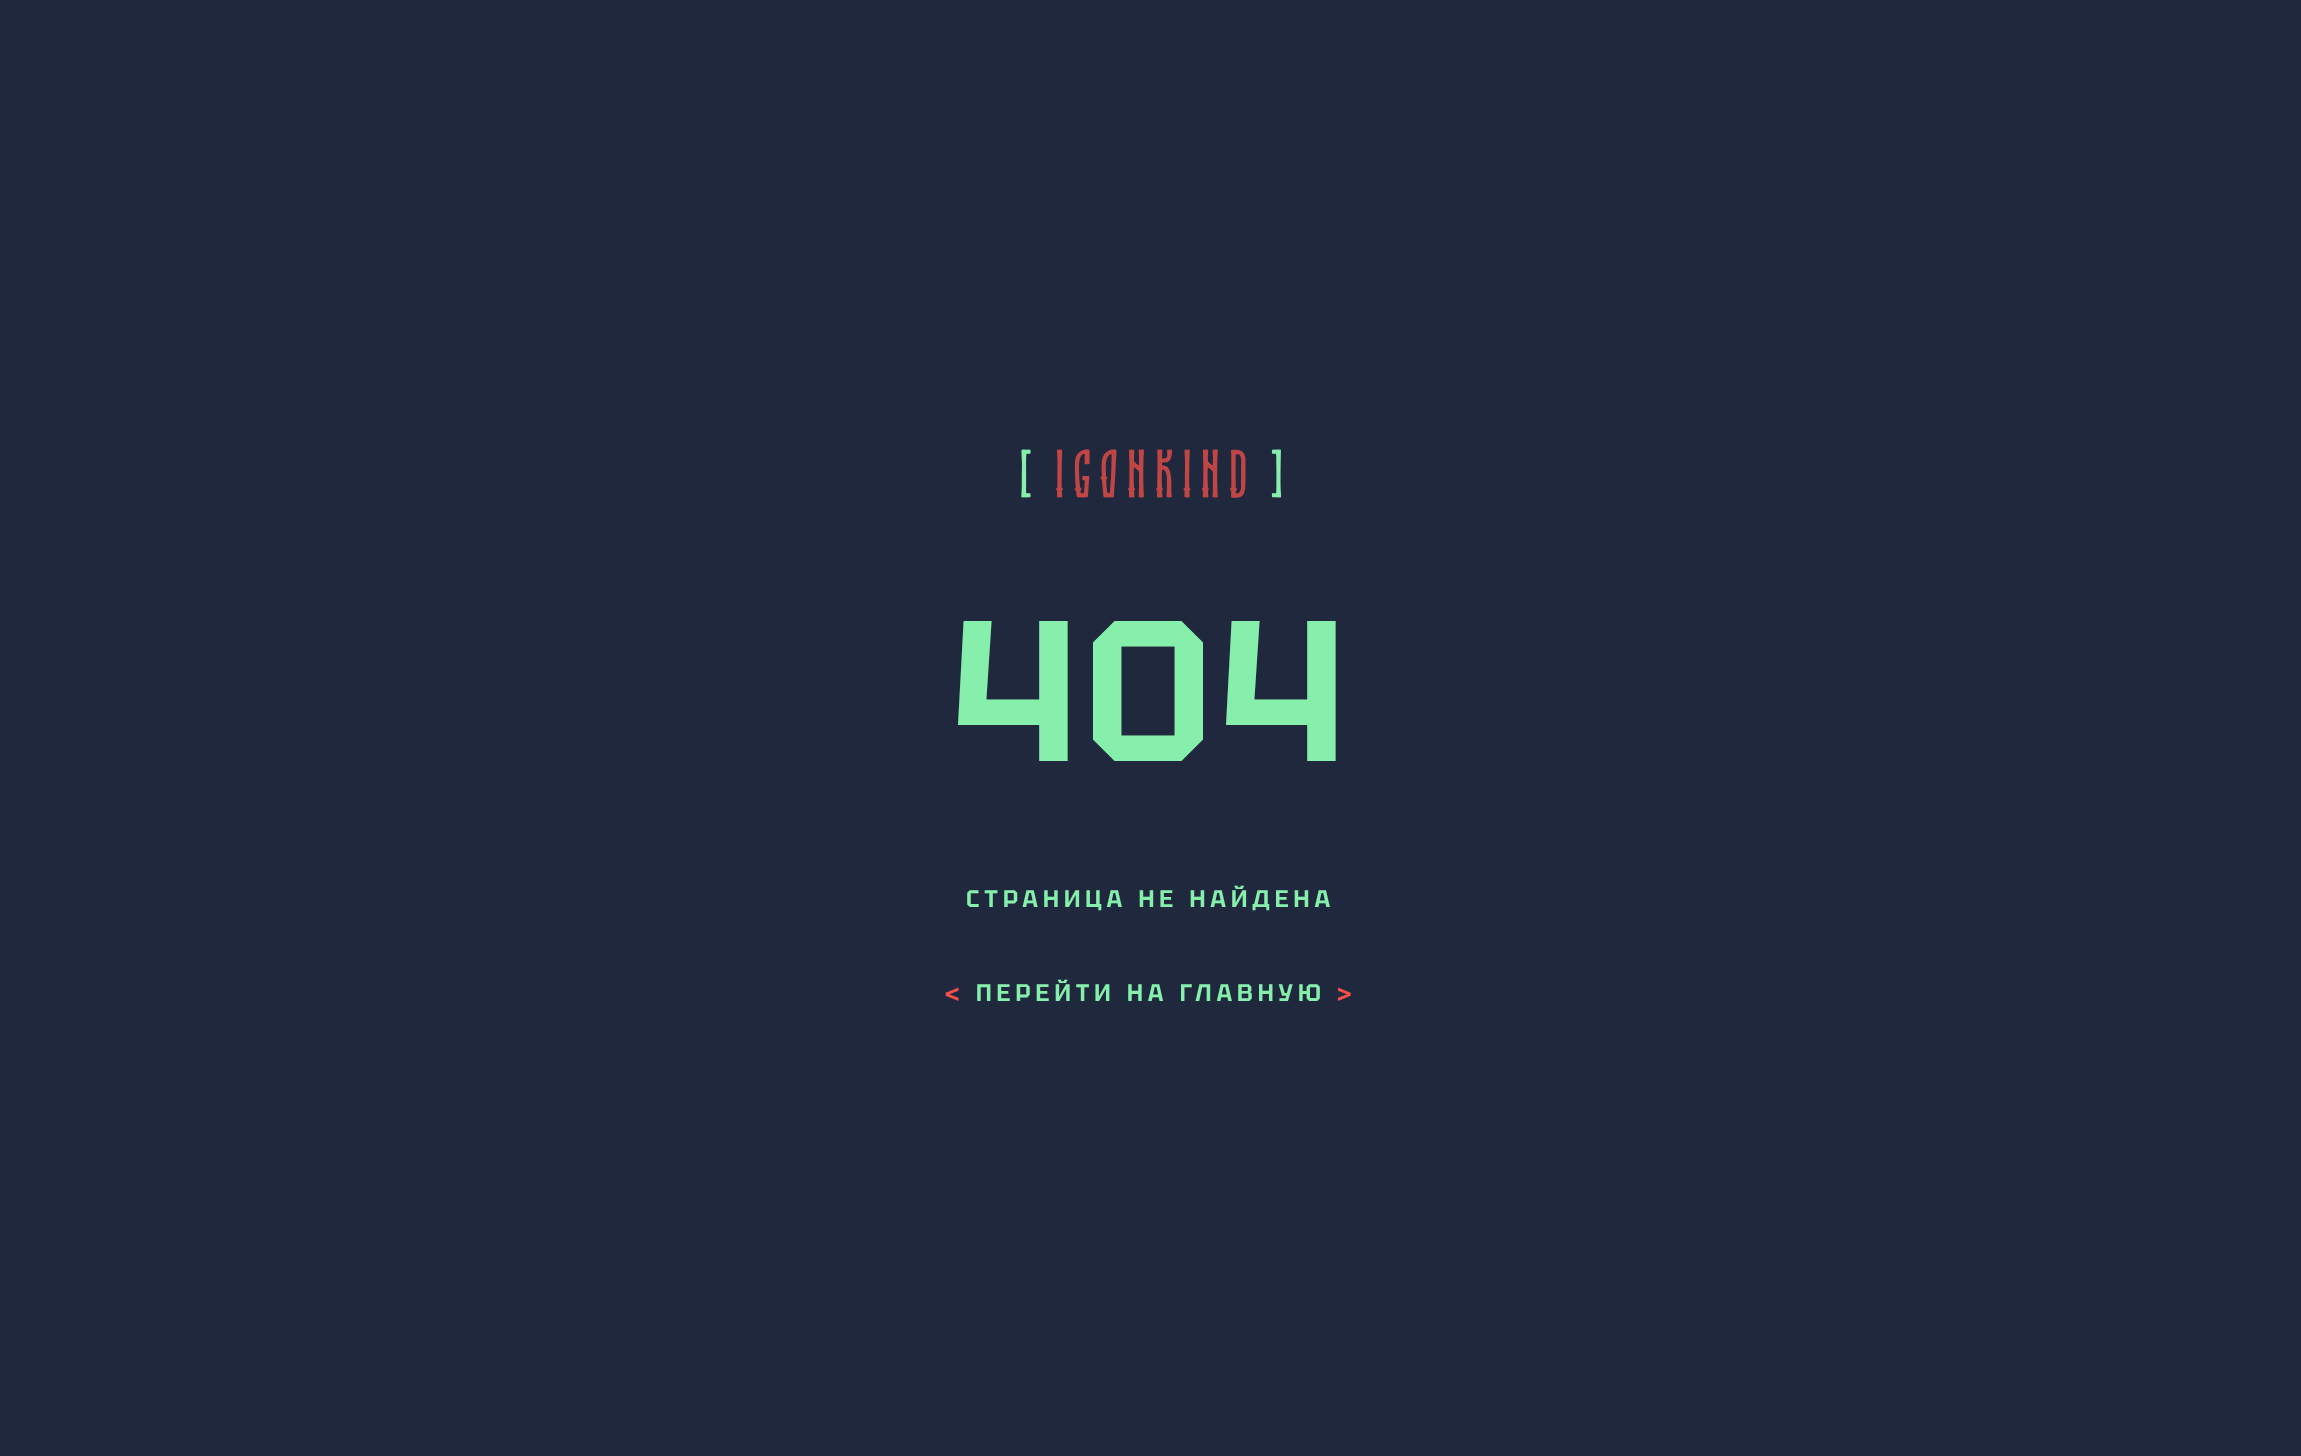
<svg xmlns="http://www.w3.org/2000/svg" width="2301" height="1456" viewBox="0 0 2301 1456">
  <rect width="100%" height="100%" fill="#1f283d"/>
  <image x="1021" y="449" width="260" height="49" href="img/1.png"/>
  <text x="950" y="761" font-family="Tektur" font-size="200" font-weight="600" letter-spacing="5" fill="#86efac">404</text>
  <text x="966" y="907" font-family="Tektur" font-size="24" font-weight="600" letter-spacing="5" fill="#86efac">СТРАНИЦА НЕ НАЙДЕНА</text>
  <text x="945" y="1001" font-family="Tektur" font-size="24" font-weight="600" letter-spacing="5" fill="#f75049">&lt;</text>
  <text x="976" y="1001" font-family="Tektur" font-size="24" font-weight="600" letter-spacing="5" fill="#86efac">ПЕРЕЙТИ НА ГЛАВНУЮ</text>
  <text x="1337" y="1001" font-family="Tektur" font-size="24" font-weight="600" letter-spacing="5" fill="#f75049">&gt;</text>
</svg>
